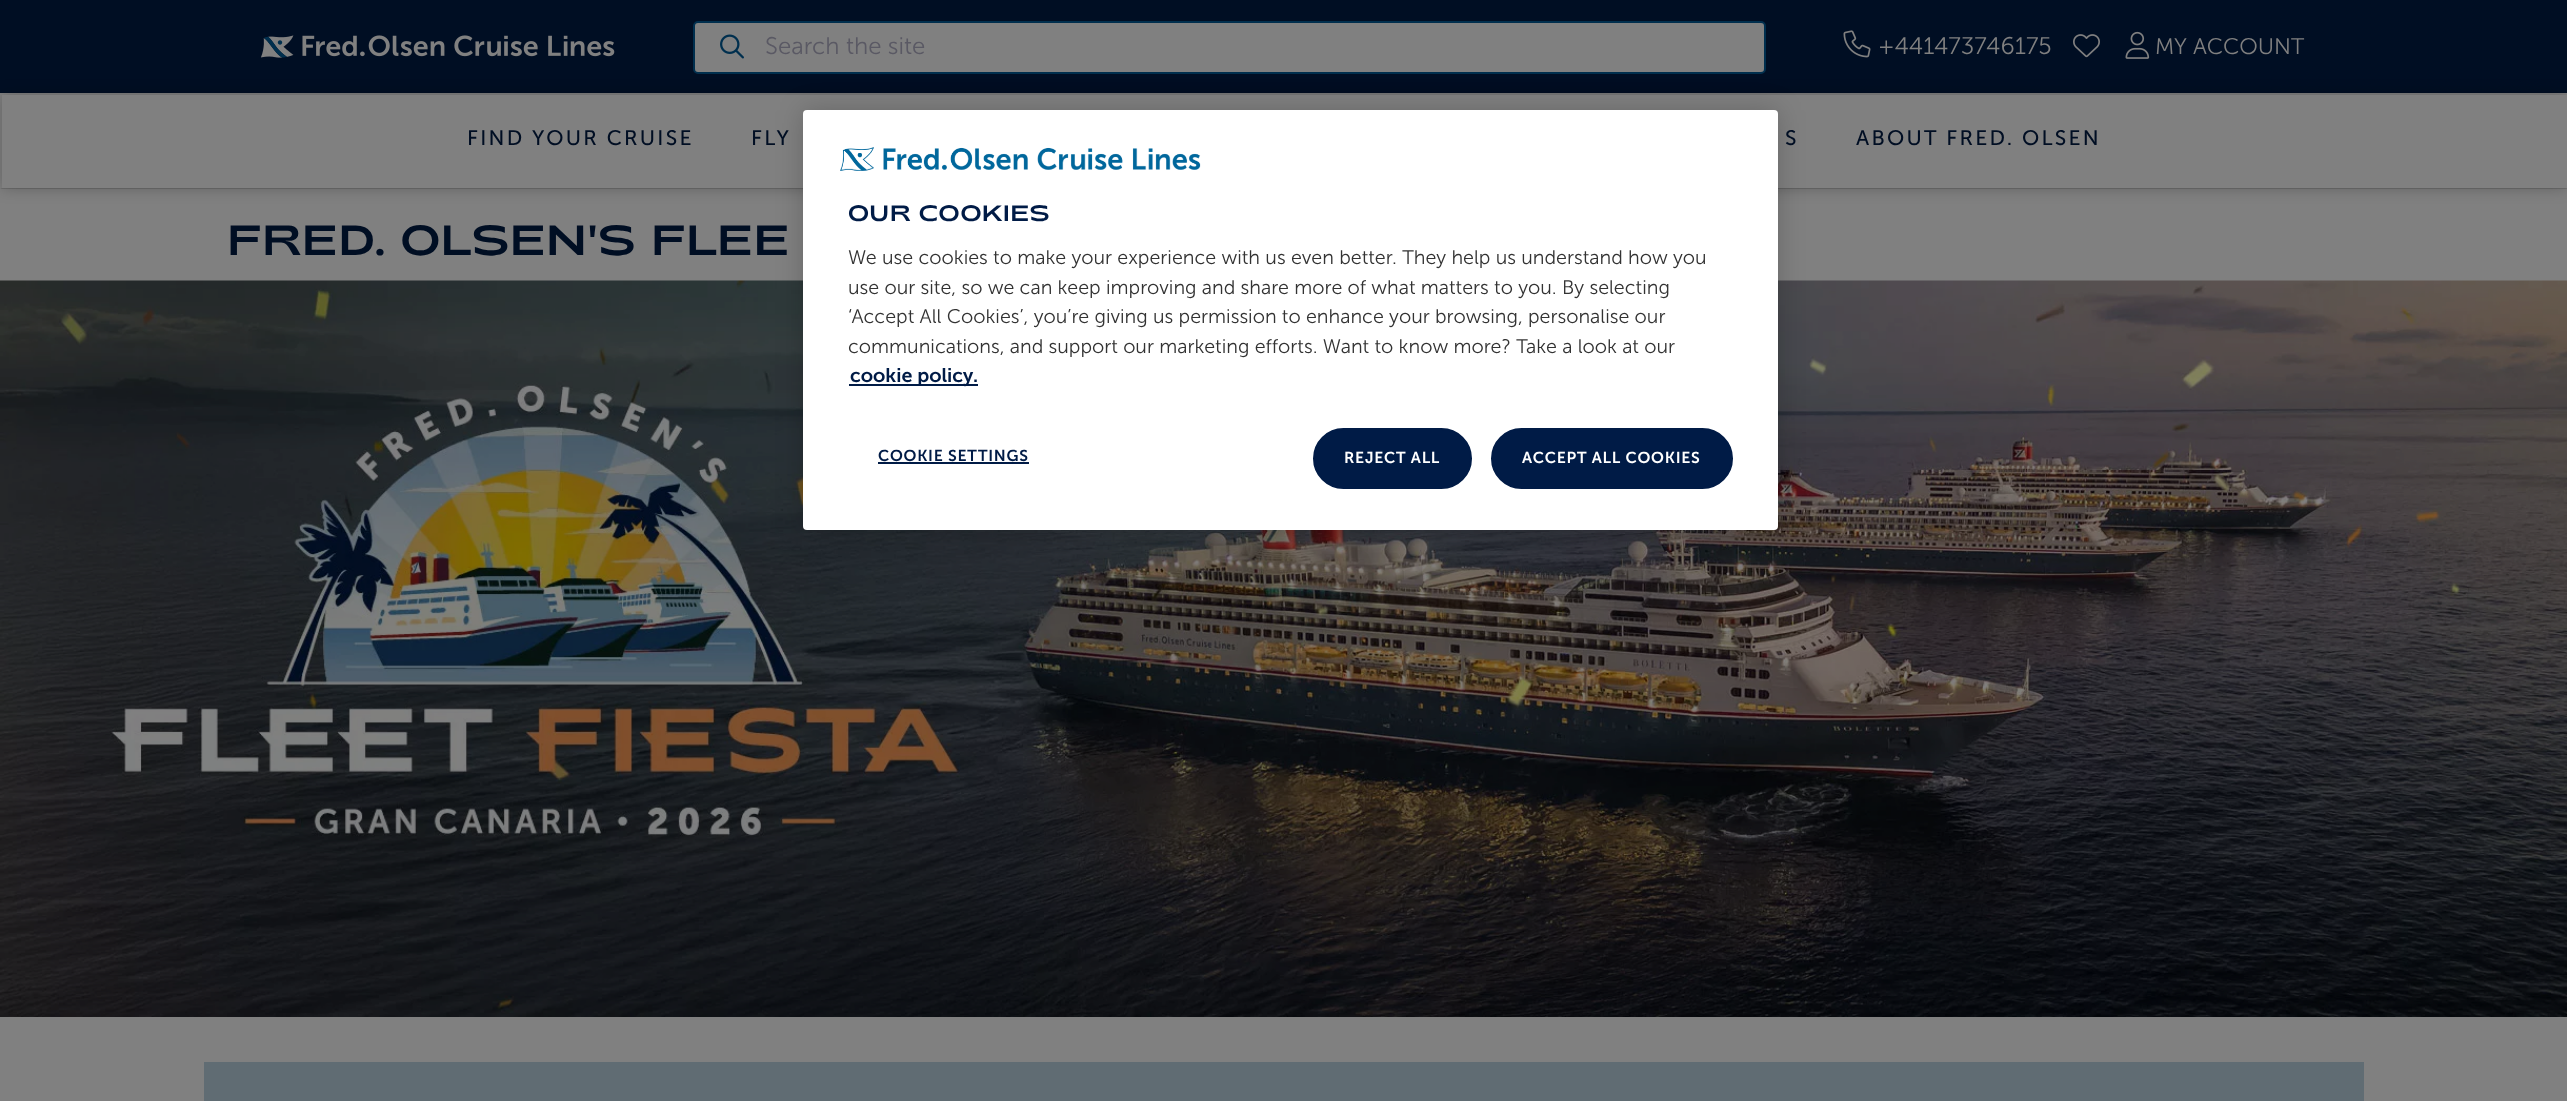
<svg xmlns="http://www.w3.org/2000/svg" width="2567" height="1101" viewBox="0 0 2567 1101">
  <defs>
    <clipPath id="clip1"><path d="M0 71H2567V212H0ZM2 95H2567V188H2Z" clip-rule="evenodd"/></clipPath>
  </defs>
  <rect width="100%" height="100%" fill="#808080"/>
  <path d="M0 0h2567v93H0z" fill="#000e23"/>
  <image x="260" y="35" width="355" height="23" href="img/1.png"/>
  <path d="M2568 189H0L2 188H2566Z" fill="#6f6f6f"/>
  <g clip-path="url(#clip1)">
    <path d="M2 95h2565v93H2z" fill="#00000040" filter="blur(7.5px)"/>
  </g>
  <rect x="694" y="22" width="1071" height="51" rx="4" fill="#808080" stroke="#002f4e" stroke-width="2"/>
  <image x="720" y="34" width="24" height="25" href="img/2.png"/>
  <image x="1843" y="30" width="28" height="28" href="img/3.png"/>
  <image x="2073" y="34" width="27" height="24" href="img/4.png"/>
  <image x="2125" y="31" width="25" height="28" href="img/5.png"/>
  <image x="0" y="280" width="2567" height="737" href="img/6.png"/>
  <path d="M204 1062h2160v39H204z" fill="#606c73"/>
  <rect x="803" y="110" width="975" height="420" rx="4" fill="#00000033" filter="blur(13.5px)"/>
  <rect x="803" y="110" width="975" height="420" rx="4" fill="#fff"/>
  <image x="840" y="147" width="361" height="24" href="img/7.png"/>
  <path d="M849 384h129v2H849z" fill="#001b46"/>
  <path d="M878 462h151v2H878z" fill="#001b46"/>
  <rect x="1314" y="429" width="157" height="59" rx="29.5" fill="#001b46" stroke="#001b46" stroke-width="2"/>
  <rect x="1492" y="429" width="240" height="59" rx="29.5" fill="#001b46" stroke="#001b46" stroke-width="2"/>
  <text x="765" y="54" font-family="Museo Sans" font-size="24" font-weight="300" fill="#5a5964">Search the site</text>
  <text x="1878" y="54" font-family="Museo Sans" font-size="24" font-weight="300" fill="#808080">+441473746175</text>
  <text x="2155" y="54" font-family="Museo Sans" font-size="22.5" font-weight="300" fill="#808080">MY ACCOUNT</text>
  <g font-family="Museo Sans" font-size="21" letter-spacing="2.25" fill="#000e23">
    <text x="467" y="145">FIND YOUR CRUISE</text>
    <text x="751" y="145">FLY</text>
    <text x="1785" y="145">S</text>
    <text x="1856" y="145">ABOUT FRED. OLSEN</text>
  </g>
  <text x="227" y="255" font-family="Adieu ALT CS" font-size="42" letter-spacing="1.5" fill="#000e23">FRED. OLSEN'S FLEE</text>
  <text x="848" y="221" font-family="Adieu ALT CS" font-size="22.25" letter-spacing="0.75" fill="#001b46">OUR COOKIES</text>
  <g font-family="Museo Sans" font-size="19.7" font-weight="300" fill="#333">
    <text x="848" y="264">We use cookies to make your experience with us even better. They help us understand how you</text>
    <text x="848" y="294">use our site, so we can keep improving and share more of what matters to you. By selecting</text>
    <text x="848" y="323">‘Accept All Cookies’, you’re giving us permission to enhance your browsing, personalise our</text>
    <text x="848" y="353">communications, and support our marketing efforts. Want to know more? Take a look at our</text>
  </g>
  <text x="850" y="382" font-family="Museo Sans" font-size="19.7" font-weight="600" fill="#001b46">cookie policy.</text>
  <text x="878" y="461" font-family="Museo Sans" font-size="15.75" font-weight="600" letter-spacing="0.75" fill="#001b46">COOKIE SETTINGS</text>
  <g font-family="Museo Sans" font-size="15.75" font-weight="600" letter-spacing="0.75" fill="#fff">
    <text x="1344" y="463">REJECT ALL</text>
    <text x="1522" y="463">ACCEPT ALL COOKIES</text>
  </g>
</svg>
